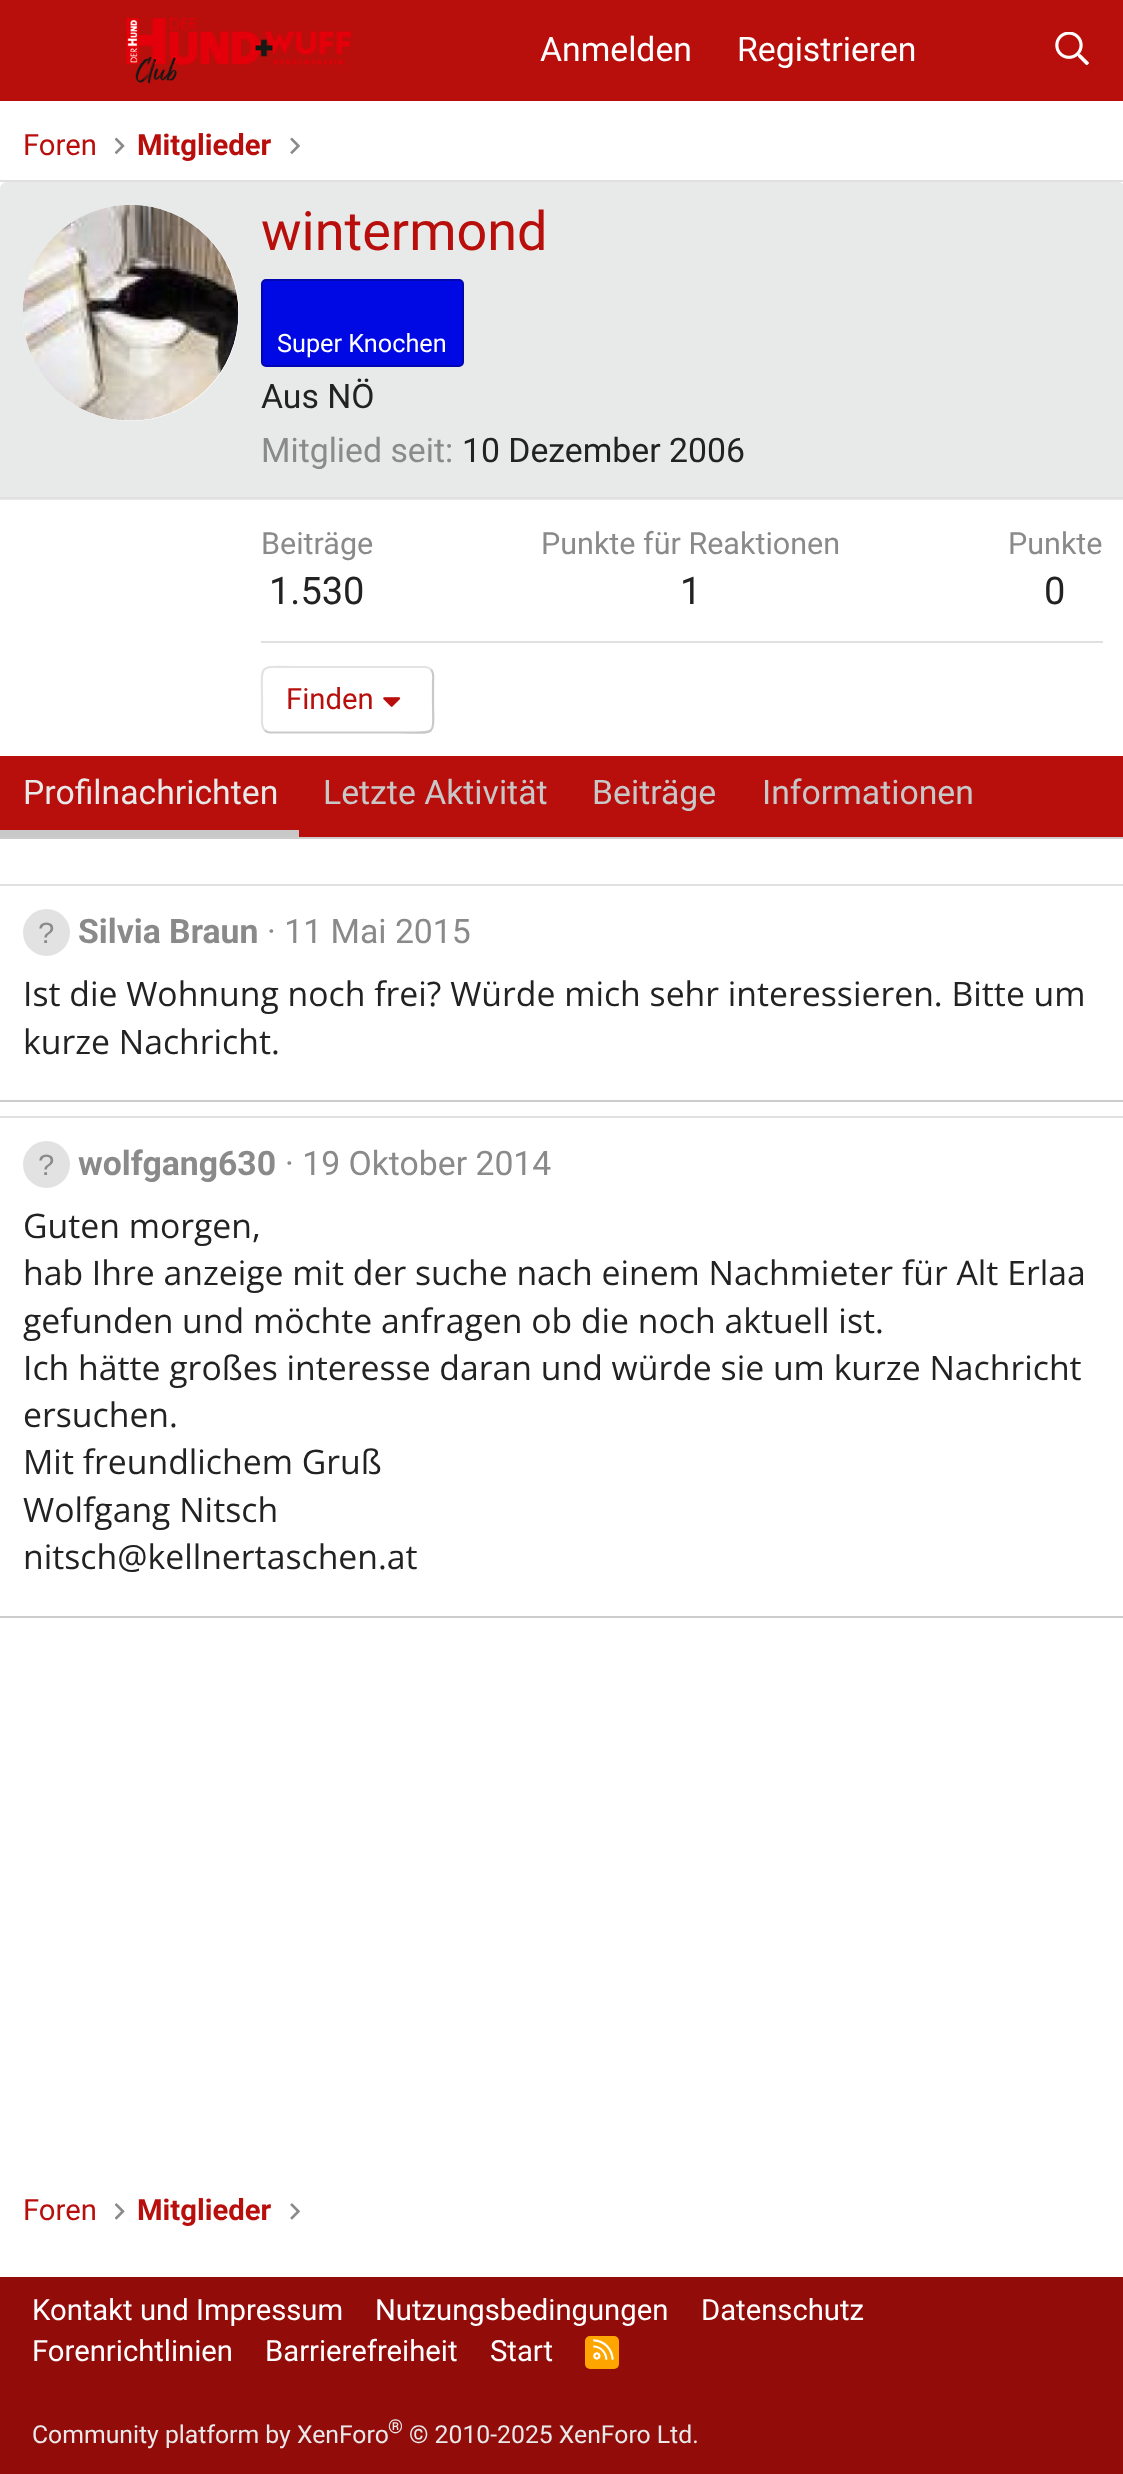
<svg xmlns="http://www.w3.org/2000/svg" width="1123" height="2474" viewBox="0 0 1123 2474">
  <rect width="100%" height="100%" fill="#fff"/>
  <path d="M0 0h1123v101H0z" fill="#b80f0c"/>
  <image x="126" y="18" width="225" height="66" href="img/1.png"/>
  <image x="1055" y="32" width="34" height="33" href="img/2.png"/>
  <image x="115" y="137" width="10" height="17" href="img/3.png"/>
  <image x="290" y="137" width="10" height="17" href="img/4.png"/>
  <path d="M0 180h1123v2H0z" fill="#e0e0e0"/>
  <path d="M0 837h1123v2H0z" fill="#ccc"/>
  <path d="M7 182H1118C1122 182 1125 185 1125 189V500H0V189C0 185 3 182 7 182Z" fill="#e8e9e9"/>
  <path d="M0 497h1123v2H0z" fill="#e0e0e0"/>
  <circle cx="131" cy="313" r="108" fill="#fff"/>
  <image x="22" y="205" width="217" height="216" href="img/5.png"/>
  <rect x="262" y="280" width="201" height="86" rx="4" fill="#0008e3" stroke="#0006b0" stroke-width="2"/>
  <path d="M261 641h842v2H261z" fill="#e0e0e0"/>
  <path d="M431 669.5C434.5 673 433 679 433 683V700C433 737.5 438.5 732.5 399.5 732.5H270C268 732.5 266 731.5 264.5 730" fill="none" stroke="#c9c9c9" stroke-width="2.2"/>
  <path d="M264.5 730C261 726.5 262 720.5 262 716V700C262 662 257 667 296 667H425C427.5 667 429.5 668 431 669.5" fill="none" stroke="#e3e3e3" stroke-width="2.2"/>
  <image x="383" y="697" width="18" height="10" href="img/6.png"/>
  <path d="M0 756h1123v81H0z" fill="#b80f0c"/>
  <path d="M0 830h299v7H0z" fill="#c8c8c8"/>
  <path d="M0 884h1123v2H0z" fill="#e0e0e0"/>
  <path d="M0 1100h1123v2H0z" fill="#ccc"/>
  <circle cx="46.5" cy="932.5" r="23.5" fill="#e2e2e2"/>
  <path d="M0 1116h1123v2H0z" fill="#e0e0e0"/>
  <path d="M0 1616h1123v2H0z" fill="#ccc"/>
  <circle cx="46.5" cy="1164.5" r="23.5" fill="#e2e2e2"/>
  <image x="115" y="2203" width="10" height="17" href="img/7.png"/>
  <image x="290" y="2203" width="10" height="17" href="img/8.png"/>
  <path d="M0 2277h1123v197H0z" fill="#920c0a"/>
  <rect x="585" y="2336" width="34" height="33" rx="5" fill="#ffa500"/>
  <image x="593" y="2339" width="21" height="21" href="img/9.png"/>
  <g font-family="Roboto" font-size="33.75" fill="#fff">
    <text x="540" y="61">Anmelden</text>
    <text x="737" y="61">Registrieren</text>
  </g>
  <text x="23" y="155" font-family="Roboto" font-size="29.25" fill="#b80f0c">Foren</text>
  <text x="137" y="155" font-family="Roboto" font-size="29.25" font-weight="bold" fill="#b80f0c">Mitglieder</text>
  <text x="261" y="250" font-family="Roboto" font-size="54" fill="#b80f0c">wintermond</text>
  <text x="277" y="352" font-family="Roboto" font-size="25.25" fill="#fff">Super Knochen</text>
  <text x="261" y="408" font-family="Roboto" font-size="33.75" fill="#222">Aus NÖ</text>
  <text x="261" y="462" font-family="Roboto" font-size="33.75" fill="#8a8a8a">Mitglied seit:</text>
  <text x="462" y="462" font-family="Roboto" font-size="33.75" fill="#222">10 Dezember 2006</text>
  <text x="261" y="554" font-family="Roboto" font-size="30.5" fill="#8a8a8a">Beiträge</text>
  <text x="269" y="604" font-family="Roboto" font-size="38" fill="#222">1.530</text>
  <text x="541" y="554" font-family="Roboto" font-size="30.5" fill="#8a8a8a">Punkte für Reaktionen</text>
  <text x="680" y="604" font-family="Roboto" font-size="38" fill="#222">1</text>
  <text x="1008" y="554" font-family="Roboto" font-size="30.5" fill="#8a8a8a">Punkte</text>
  <text x="1044" y="604" font-family="Roboto" font-size="38" fill="#222">0</text>
  <text x="286" y="709" font-family="Roboto" font-size="29.25" fill="#b80f0c">Finden</text>
  <text x="23" y="804" font-family="Roboto" font-size="33.75" fill="#e8e9e9">Profilnachrichten</text>
  <g font-family="Roboto" font-size="33.75" fill="#c8c8c8">
    <text x="323" y="804">Letzte Aktivität</text>
    <text x="592" y="804">Beiträge</text>
    <text x="762" y="804">Informationen</text>
  </g>
  <text x="38" y="943" font-family="Liberation Sans" font-size="29.25" fill="#8a8a8a">?</text>
  <text x="78" y="943" font-family="Roboto" font-size="33.75" font-weight="bold" fill="#8a8a8a">Silvia Braun</text>
  <text x="267" y="943" font-family="Roboto" font-size="33.75" fill="#8a8a8a">· 11 Mai 2015</text>
  <g font-family="Open Sans" font-size="33.75" fill="#222">
    <text x="23" y="1006">Ist die Wohnung noch frei? Würde mich sehr interessieren. Bitte um</text>
    <text x="23" y="1054">kurze Nachricht.</text>
  </g>
  <text x="38" y="1175" font-family="Liberation Sans" font-size="29.25" fill="#8a8a8a">?</text>
  <text x="78" y="1175" font-family="Roboto" font-size="33.75" font-weight="bold" fill="#8a8a8a">wolfgang630</text>
  <text x="285" y="1175" font-family="Roboto" font-size="33.75" fill="#8a8a8a">· 19 Oktober 2014</text>
  <g font-family="Open Sans" font-size="33.75" fill="#222">
    <text x="23" y="1238">Guten morgen,</text>
    <text x="23" y="1285">hab Ihre anzeige mit der suche nach einem Nachmieter für Alt Erlaa</text>
    <text x="23" y="1333">gefunden und möchte anfragen ob die noch aktuell ist.</text>
    <text x="23" y="1380">Ich hätte großes interesse daran und würde sie um kurze Nachricht</text>
    <text x="23" y="1427">ersuchen.</text>
    <text x="23" y="1474">Mit freundlichem Gruß</text>
    <text x="23" y="1522">Wolfgang Nitsch</text>
    <text x="23" y="1569">nitsch@kellnertaschen.at</text>
  </g>
  <text x="23" y="2220" font-family="Roboto" font-size="29.25" fill="#b80f0c">Foren</text>
  <text x="137" y="2220" font-family="Roboto" font-size="29.25" font-weight="bold" fill="#b80f0c">Mitglieder</text>
  <g font-family="Roboto" font-size="29.25" fill="#fff">
    <text x="32" y="2320">Kontakt und Impressum</text>
    <text x="375" y="2320">Nutzungsbedingungen</text>
    <text x="701" y="2320">Datenschutz</text>
    <text x="32" y="2361">Forenrichtlinien</text>
    <text x="265" y="2361">Barrierefreiheit</text>
    <text x="490" y="2361">Start</text>
  </g>
  <text x="32" y="2443" font-family="Roboto" font-size="24.75" fill="#e8e9e9">Community platform by XenForo</text>
  <text x="388" y="2433" font-family="Roboto" font-size="19" fill="#e8e9e9">®</text>
  <text x="409" y="2443" font-family="Roboto" font-size="24.75" fill="#e8e9e9">© 2010-2025 XenForo Ltd.</text>
</svg>
